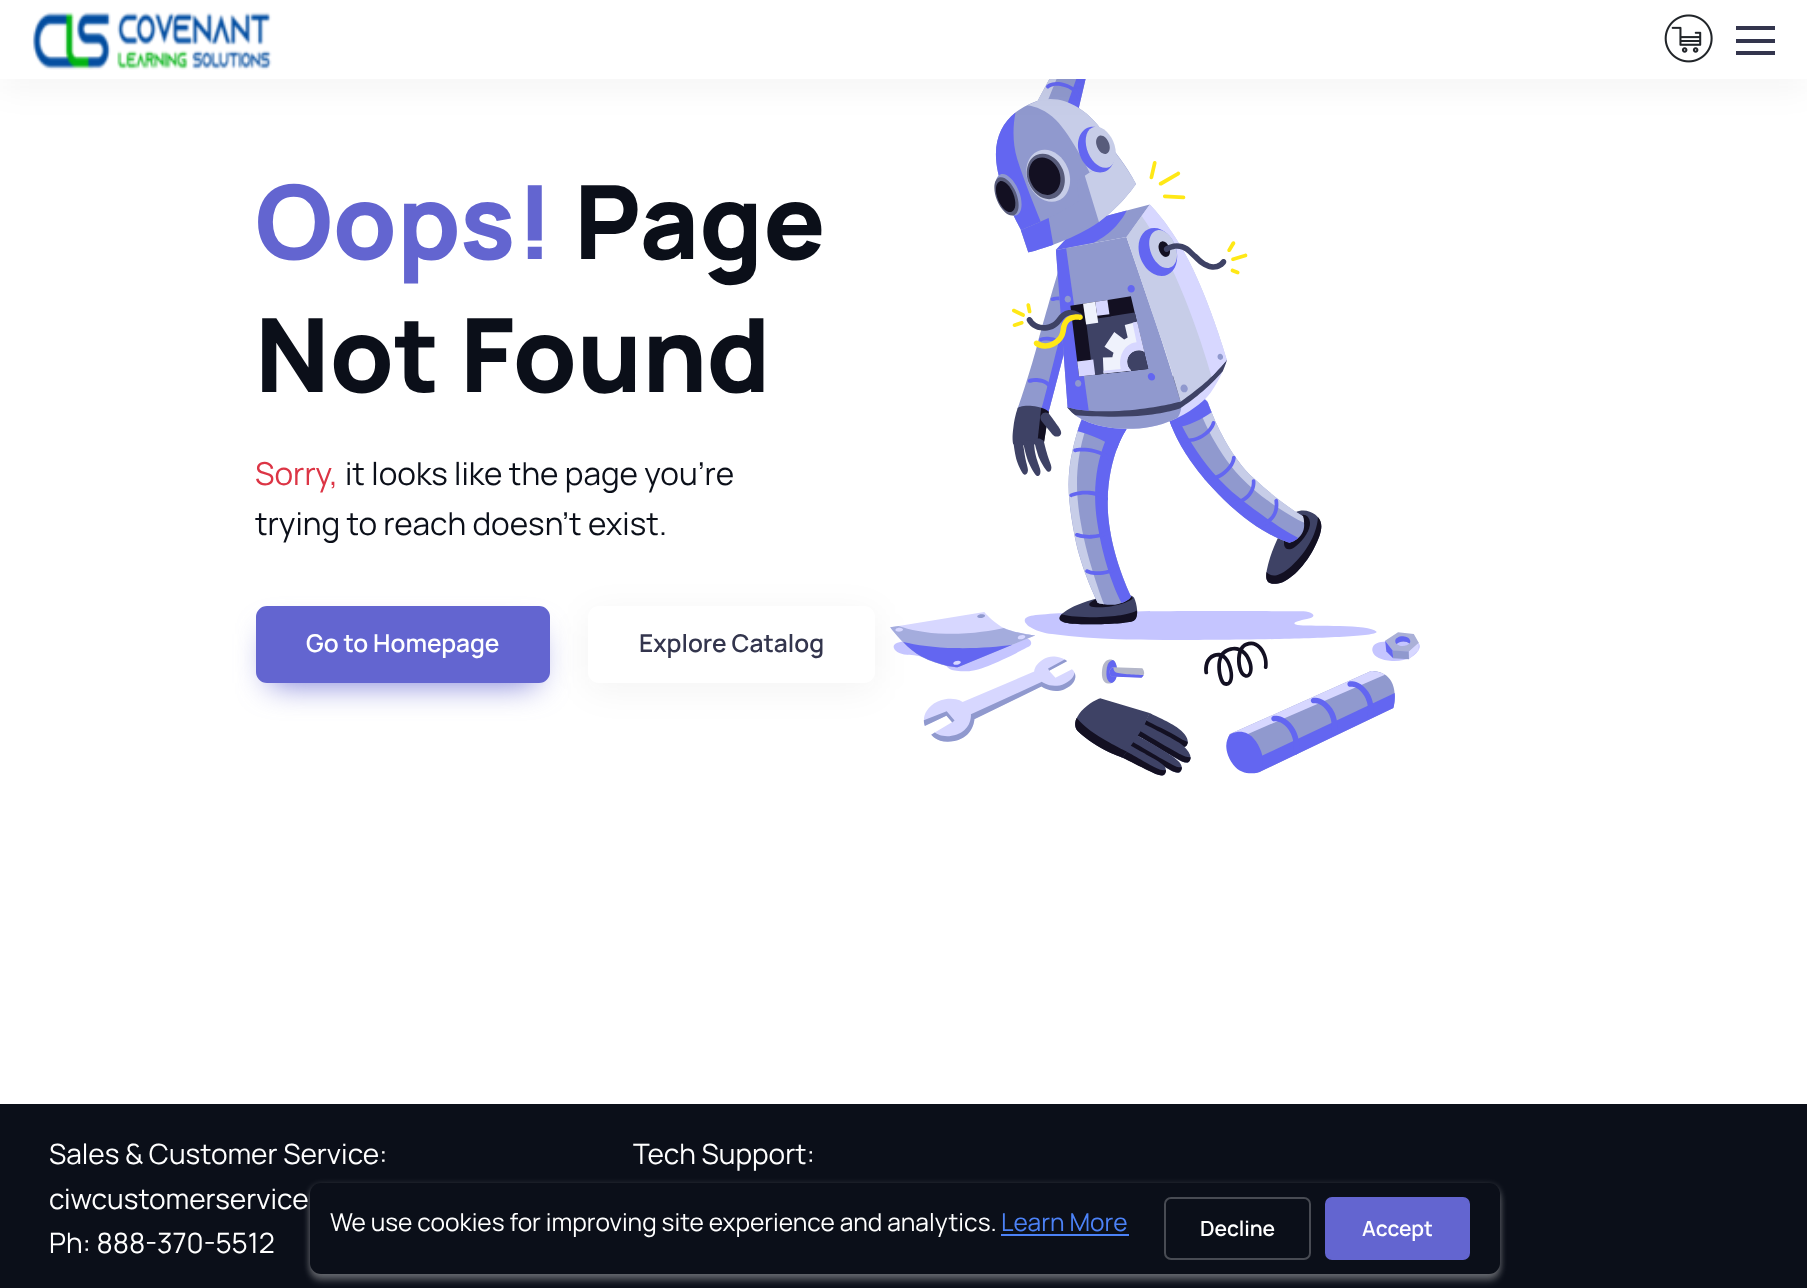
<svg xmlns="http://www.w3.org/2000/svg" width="1807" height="1288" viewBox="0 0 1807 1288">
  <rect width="100%" height="100%" fill="#fff"/>
  <path d="M270 634h266v49H270z" fill="#6365d0e6" filter="blur(16px)"/>
  <rect x="257" y="607" width="292" height="75" rx="10" fill="#6365d0" stroke="#6365d0" stroke-width="2"/>
  <rect x="588" y="613" width="287" height="77" rx="11" fill="#0b0f190d" filter="blur(17.5px)"/>
  <image x="890" y="79" width="530" height="697" href="img/3.png"/>
  <path d="M0 7h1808v79H0z" fill="#0b0f190d" filter="blur(17.5px)"/>
  <path d="M0 0h1807v79H0z" fill="#fff"/>
  <image x="32" y="12" width="240" height="58" href="img/1.png"/>
  <image x="1664" y="14" width="49" height="49" href="img/2.png"/>
  <path d="M1736 39h39v4H1736z" fill="#33354d"/>
  <path d="M1736 26h39v4H1736z" fill="#33354d"/>
  <path d="M1736 51h39v4H1736z" fill="#33354d"/>
  <rect x="588" y="606" width="287" height="77" rx="11" fill="#fff"/>
  <path d="M0 1104h1807v184H0z" fill="#0b0f19"/>
  <rect x="310" y="1190" width="1190" height="91" rx="11" fill="#ffffff38" filter="blur(3.5px)"/>
  <rect x="310" y="1185" width="1190" height="91" rx="11" fill="#ffffff40" filter="blur(3.5px)"/>
  <rect x="310" y="1183" width="1190" height="91" rx="11" fill="#0b0f19"/>
  <path d="M1001 1234h128v2H1001z" fill="#4c82f7"/>
  <rect x="1165" y="1198" width="145" height="61" rx="6" fill="none" stroke="#484b53" stroke-width="2"/>
  <rect x="1326" y="1198" width="143" height="61" rx="6" fill="#6365d0" stroke="#6365d0" stroke-width="2"/>
  <text x="255" y="259" font-family="Manrope" font-size="102.5" font-weight="800" fill="#6365d0">Oops!</text>
  <g font-family="Manrope" font-size="102.5" font-weight="800" fill="#0b0f19">
    <text x="574" y="259">Page</text>
    <text x="255" y="392">Not Found</text>
  </g>
  <text x="255" y="485" font-family="Manrope" font-size="31.5" fill="#dc3545">Sorry,</text>
  <g font-family="Manrope" font-size="31.5" fill="#0b0f19">
    <text x="345" y="485">it looks like the page you're</text>
    <text x="255" y="535">trying to reach doesn't exist.</text>
  </g>
  <text x="306" y="652" font-family="Manrope" font-size="24.5" font-weight="600" fill="#fff">Go to Homepage</text>
  <text x="639" y="652" font-family="Manrope" font-size="24.5" font-weight="600" fill="#33354d">Explore Catalog</text>
  <g font-family="Manrope" font-size="28" fill="#fff">
    <text x="49" y="1164">Sales &amp; Customer Service:</text>
    <text x="49" y="1209">ciwcustomerservice</text>
    <text x="633" y="1164">Tech Support:</text>
    <text x="49" y="1253">Ph: 888-370-5512</text>
  </g>
  <text x="330" y="1231" font-family="Manrope" font-size="24.5" fill="#fff">We use cookies for improving site experience and analytics.</text>
  <text x="1001" y="1231" font-family="Manrope" font-size="24.5" fill="#4c82f7">Learn More</text>
  <g font-family="Manrope" font-size="21" font-weight="600" fill="#fff">
    <text x="1200" y="1236">Decline</text>
    <text x="1362" y="1236">Accept</text>
  </g>
</svg>
